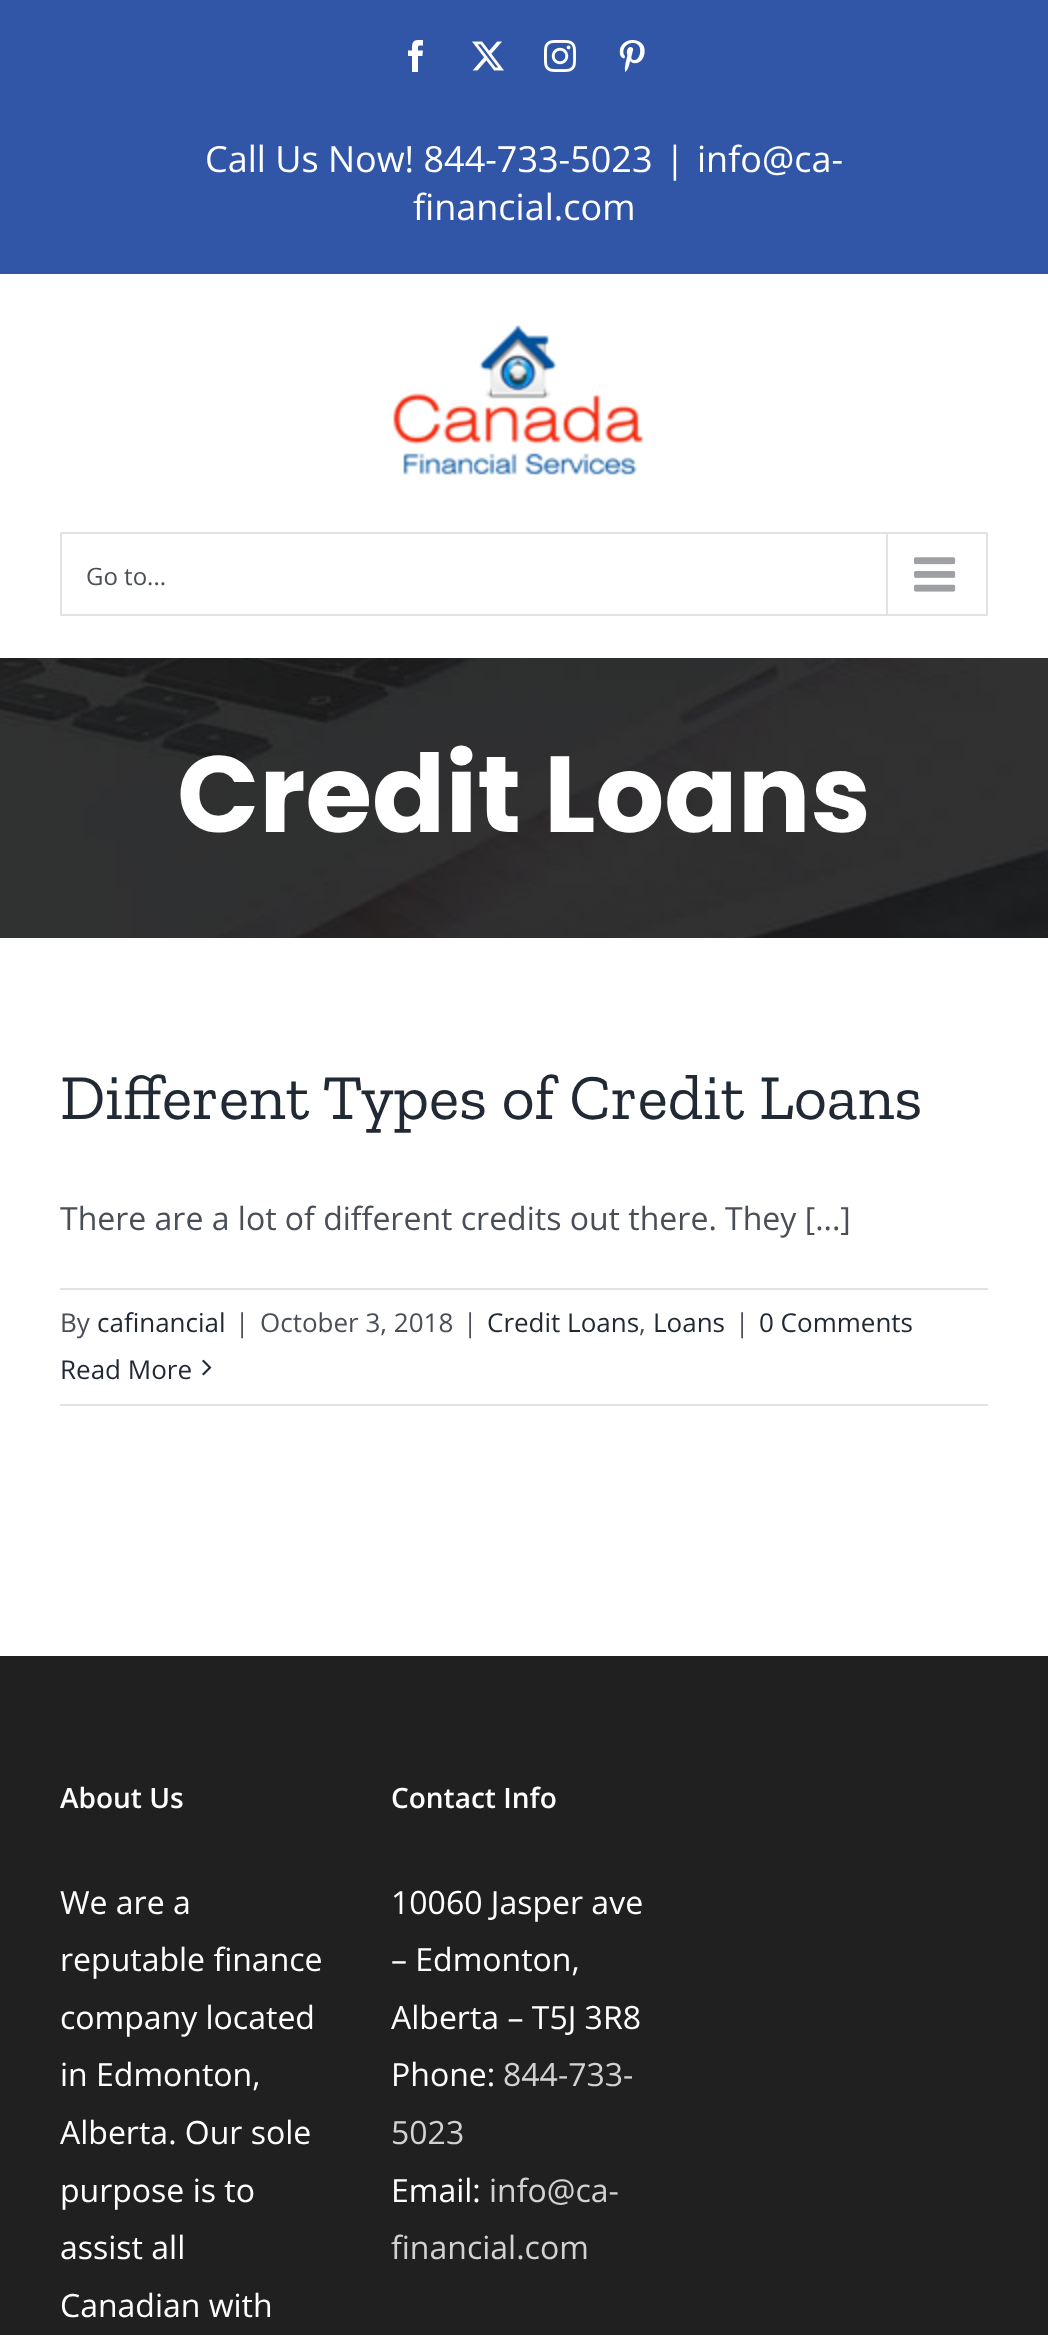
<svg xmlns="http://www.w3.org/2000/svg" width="1048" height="2335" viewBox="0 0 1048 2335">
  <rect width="100%" height="100%" fill="#fff"/>
  <path d="M0 0h1048v274H0z" fill="#3155a7"/>
  <image x="408" y="40" width="15" height="32" href="img/1.png"/>
  <image x="472" y="41" width="32" height="30" href="img/2.png"/>
  <image x="544" y="40" width="32" height="32" href="img/3.png"/>
  <image x="619" y="40" width="26" height="32" href="img/4.png"/>
  <image x="393" y="325" width="250" height="150" href="img/5.png"/>
  <path d="M61 533h926v82H61z" fill="none" stroke="#e2e2e2" stroke-width="2"/>
  <path d="M886 534h2v80H886z" fill="#e2e2e2"/>
  <image x="914" y="557" width="42" height="35" href="img/6.png"/>
  <image x="0" y="658" width="1048" height="280" href="img/7.png"/>
  <path d="M60 1288h928v2H60z" fill="#e2e2e2"/>
  <path d="M60 1404h928v2H60z" fill="#e2e2e2"/>
  <image x="202" y="1359" width="10" height="17" href="img/8.png"/>
  <path d="M0 1656h1048v679H0z" fill="#202020"/>
  <g font-family="Open Sans" font-size="36" fill="#fff">
    <text x="205" y="172">Call Us Now! 844-733-5023</text>
    <text x="665" y="172">|</text>
    <text x="697" y="172">info@ca-</text>
    <text x="413" y="220">financial.com</text>
  </g>
  <text x="86" y="585" font-family="Open Sans" font-size="24" fill="#4a4e57">Go to...</text>
  <text x="177" y="832" font-family="Poppins" font-size="108" font-weight="bold" fill="#fff">Credit Loans</text>
  <text x="60" y="1119" font-family="Zilla Slab" font-size="64" fill="#212934">Different Types of Credit Loans</text>
  <text x="60" y="1230" font-family="Open Sans" font-size="32" fill="#4a4e57">There are a lot of different credits out there. They [...]</text>
  <text x="60" y="1332" font-family="Open Sans" font-size="26" fill="#4a4e57">By</text>
  <text x="97" y="1332" font-family="Open Sans" font-size="26" fill="#212934">cafinancial</text>
  <g font-family="Open Sans" font-size="26" fill="#4a4e57">
    <text x="235" y="1332">|</text>
    <text x="260" y="1332">October 3, 2018</text>
    <text x="463" y="1332">|</text>
  </g>
  <text x="487" y="1332" font-family="Open Sans" font-size="26" fill="#212934">Credit Loans</text>
  <text x="639" y="1332" font-family="Open Sans" font-size="26" fill="#4a4e57">,</text>
  <text x="653" y="1332" font-family="Open Sans" font-size="26" fill="#212934">Loans</text>
  <text x="735" y="1332" font-family="Open Sans" font-size="26" fill="#4a4e57">|</text>
  <g font-family="Open Sans" font-size="26" fill="#212934">
    <text x="759" y="1332">0 Comments</text>
    <text x="60" y="1379">Read More</text>
  </g>
  <text x="60" y="1808" font-family="Open Sans" font-size="28" font-weight="600" fill="#fff">About Us</text>
  <g font-family="Open Sans" font-size="32" fill="#fff">
    <text x="60" y="1914">We are a</text>
    <text x="60" y="1971">reputable finance</text>
    <text x="60" y="2029">company located</text>
    <text x="60" y="2086">in Edmonton,</text>
    <text x="60" y="2144">Alberta. Our sole</text>
    <text x="60" y="2202">purpose is to</text>
    <text x="60" y="2259">assist all</text>
    <text x="60" y="2317">Canadian with</text>
  </g>
  <text x="391" y="1808" font-family="Open Sans" font-size="28" font-weight="600" fill="#fff">Contact Info</text>
  <g font-family="Open Sans" font-size="32" fill="#fff">
    <text x="391" y="1914">10060 Jasper ave</text>
    <text x="391" y="1971">– Edmonton,</text>
    <text x="391" y="2029">Alberta – T5J 3R8</text>
    <text x="391" y="2086">Phone:</text>
  </g>
  <g font-family="Open Sans" font-size="32" fill="#d2d2d2">
    <text x="503" y="2086">844-733-</text>
    <text x="391" y="2144">5023</text>
  </g>
  <text x="391" y="2202" font-family="Open Sans" font-size="32" fill="#fff">Email:</text>
  <g font-family="Open Sans" font-size="32" fill="#d2d2d2">
    <text x="489" y="2202">info@ca-</text>
    <text x="391" y="2259">financial.com</text>
  </g>
</svg>
